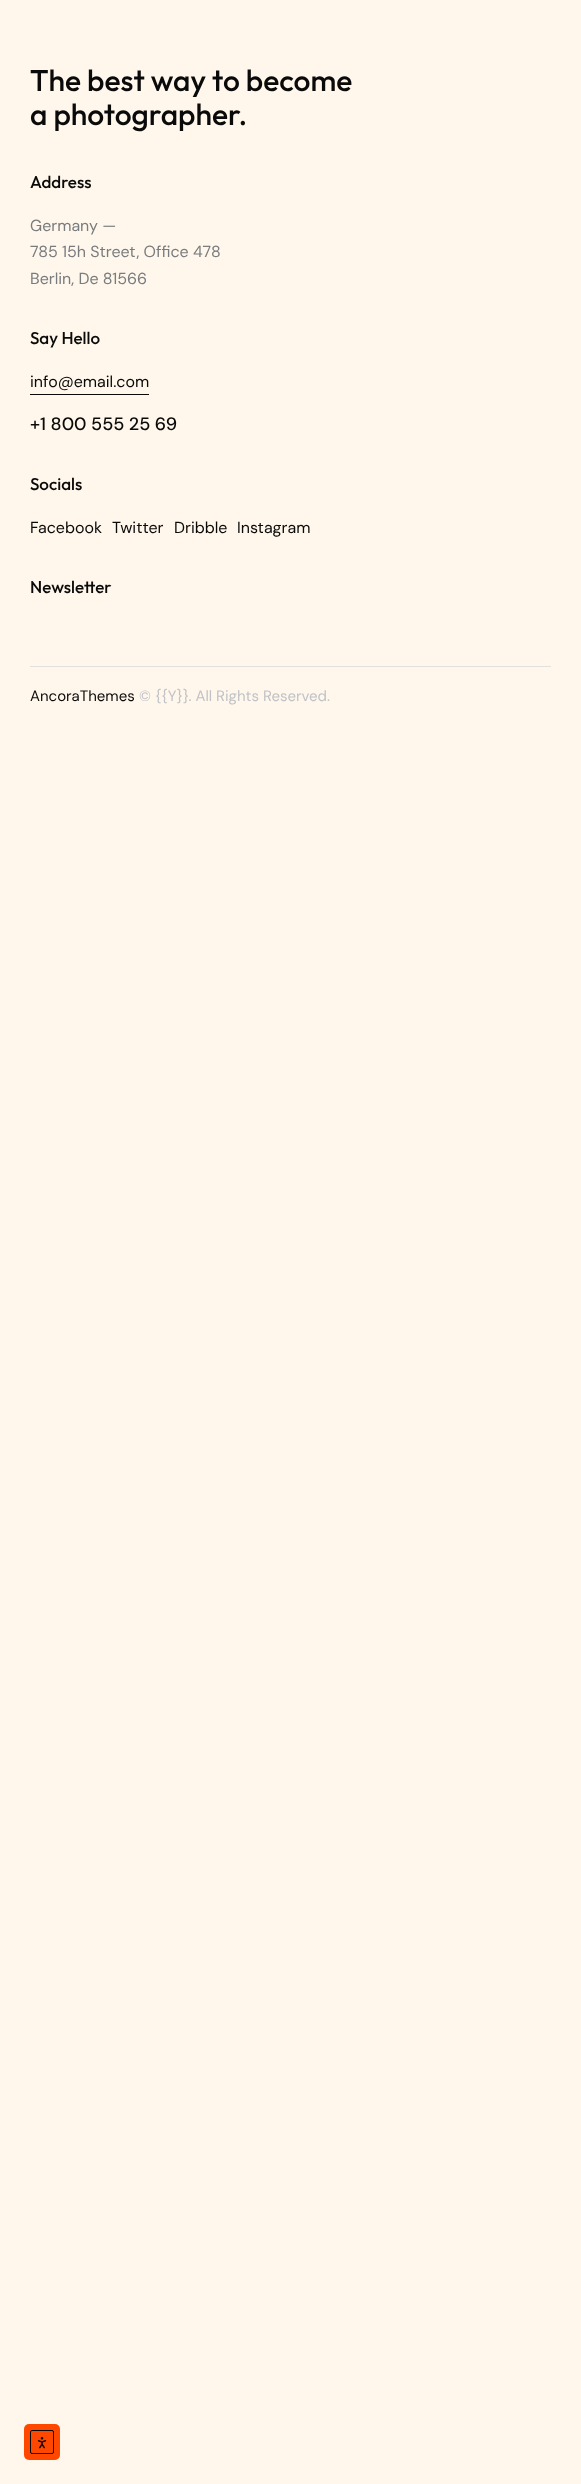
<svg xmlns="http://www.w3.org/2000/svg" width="581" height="2484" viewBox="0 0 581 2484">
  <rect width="100%" height="100%" fill="#fff7eb"/>
  <path d="M30 394h119v1H30z" fill="#0a0a0a"/>
  <path d="M30 666h521v1H30z" fill="#e1e1dd"/>
  <rect x="24" y="2424" width="36" height="36" rx="5" fill="#ff4700"/>
  <rect x="30.5" y="2430.5" width="23" height="23" rx="1.5" fill="none" stroke="#000"/>
  <image x="37" y="2437" width="10" height="12" href="img/1.png"/>
  <g font-family="Outfit" font-size="30" font-weight="500" fill="#0a0a0a">
    <text x="30" y="91">The best way to become</text>
    <text x="30" y="125">a photographer.</text>
  </g>
  <text x="30" y="188" font-family="Outfit" font-size="17" font-weight="500" fill="#0a0a0a">Address</text>
  <g font-family="DM Sans" font-size="16" fill="#797c7f">
    <text x="30" y="231">Germany —</text>
    <text x="30" y="257">785 15h Street, Office 478</text>
    <text x="30" y="284">Berlin, De 81566</text>
  </g>
  <text x="30" y="344" font-family="Outfit" font-size="17" font-weight="500" fill="#0a0a0a">Say Hello</text>
  <text x="30" y="387" font-family="DM Sans" font-size="16" fill="#0a0a0a">info@email.com</text>
  <text x="30" y="430" font-family="DM Sans" font-size="18" font-weight="500" fill="#0a0a0a">+1 800 555 25 69</text>
  <text x="30" y="490" font-family="Outfit" font-size="17" font-weight="500" fill="#0a0a0a">Socials</text>
  <g font-family="DM Sans" font-size="16" fill="#0a0a0a">
    <text x="30" y="533">Facebook</text>
    <text x="112" y="533">Twitter</text>
    <text x="174" y="533">Dribble</text>
    <text x="237" y="533">Instagram</text>
  </g>
  <text x="30" y="593" font-family="Outfit" font-size="17" font-weight="500" fill="#0a0a0a">Newsletter</text>
  <text x="30" y="701" font-family="DM Sans" font-size="15" fill="#0a0a0a">AncoraThemes</text>
  <text x="139" y="701" font-family="DM Sans" font-size="15" fill="#c0c2c7">© {{Y}}. All Rights Reserved.</text>
</svg>
